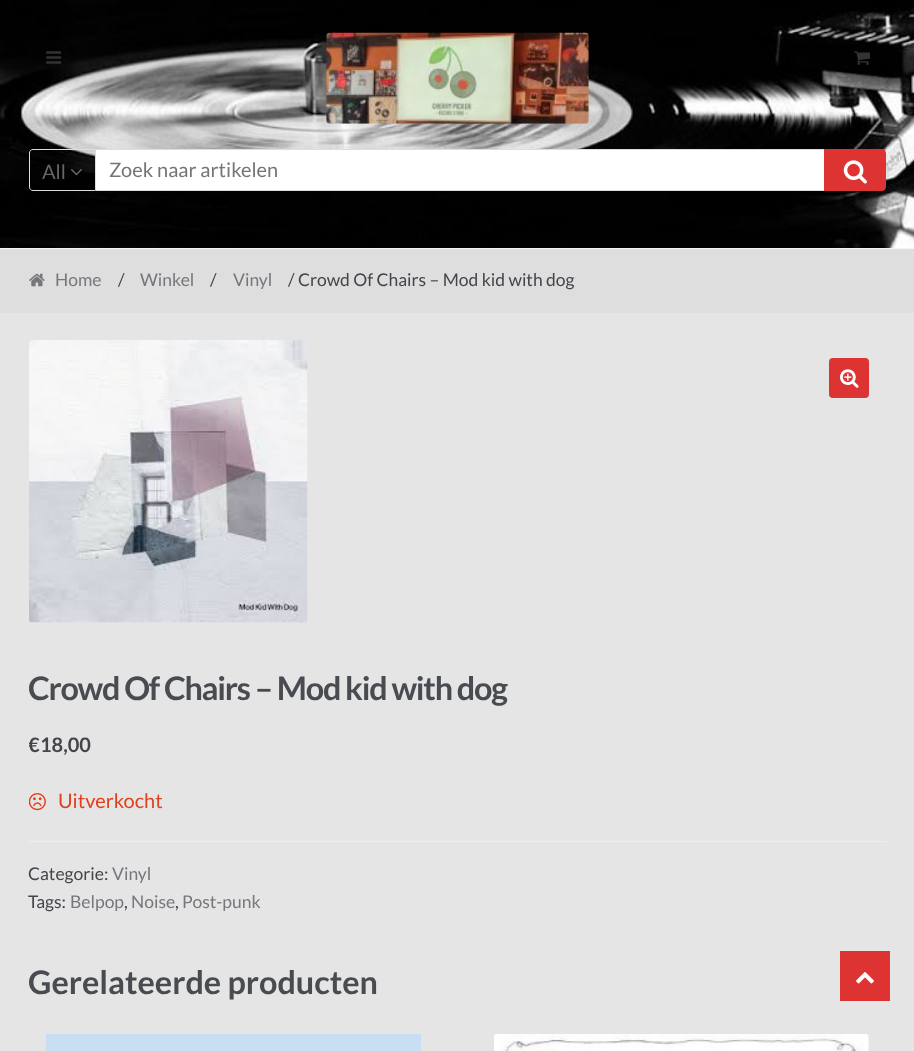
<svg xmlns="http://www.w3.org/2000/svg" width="914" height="1051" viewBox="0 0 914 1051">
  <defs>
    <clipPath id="clip1"><path d="M29 340h857v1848H29z"/></clipPath>
  </defs>
  <rect width="100%" height="100%" fill="#e5e5e5"/>
  <image x="0" y="0" width="914" height="248" href="img/1.png"/>
  <path d="M0 248h914v1H0z" fill="#f5f5f5"/>
  <image x="46" y="51" width="16" height="13" href="img/2.png"/>
  <image x="326" y="32" width="263" height="92" href="img/3.png"/>
  <image x="853" y="51" width="17" height="14" href="img/4.png"/>
  <path d="M33 149.5H95.5V190.5H33C31 190.5 29.5 189 29.5 187V153C29.5 151 31 149.5 33 149.5Z" fill="none" stroke="#ddd"/>
  <image x="71" y="169" width="11" height="7" href="img/5.png"/>
  <path d="M96 150h728v40H96z" fill="#fff"/>
  <path d="M96 149h728v1H96z" fill="#ddd"/>
  <path d="M96 190h728v1H96z" fill="#ddd"/>
  <path d="M824 149H882C884 149 886 151 886 153V187C886 189 884 191 882 191H824Z" fill="#d33"/>
  <image x="843" y="160" width="24" height="24" href="img/6.png"/>
  <path d="M0 249h914v64H0z" fill="#dedede"/>
  <image x="29" y="273" width="16" height="14" href="img/7.png"/>
  <image x="29" y="340" width="279" height="283" href="img/8.png"/>
  <rect x="829" y="358" width="40" height="40" rx="4" fill="#d33"/>
  <image x="840" y="369" width="19" height="19" href="img/9.png"/>
  <image x="29" y="793" width="17" height="18" href="img/10.png"/>
  <path d="M29 841h857v1H29z" fill="#eee"/>
  <path d="M46 1034h375v17H46z" fill="#c8def3"/>
  <image x="494" y="1034" width="375" height="17" href="img/11.png"/>
  <path d="M840 951h50v50H840z" fill="#d33"/>
  <image x="856" y="972" width="18" height="12" href="img/12.png"/>
  <text x="42" y="179" font-family="Lato" font-size="20" fill="#666">All</text>
  <text x="109" y="177" font-family="Lato" font-size="20" fill="#757575">Zoek naar artikelen</text>
  <text x="55" y="286" font-family="Lato" font-size="17.5" fill="#75777d">Home</text>
  <text x="118" y="286" font-family="Lato" font-size="17.5" fill="#43454b">/</text>
  <text x="140" y="286" font-family="Lato" font-size="17.5" fill="#75777d">Winkel</text>
  <text x="210" y="286" font-family="Lato" font-size="17.5" fill="#43454b">/</text>
  <text x="233" y="286" font-family="Lato" font-size="17.5" fill="#75777d">Vinyl</text>
  <text x="288" y="286" font-family="Lato" font-size="17.5" fill="#43454b">/ Crowd Of Chairs – Mod kid with dog</text>
  <text x="28" y="700" font-family="Lato" font-size="32.4" font-weight="bold" letter-spacing="-1.25" fill="#484c51">Crowd Of Chairs – Mod kid with dog</text>
  <g clip-path="url(#clip1)">
    <text x="28" y="752" font-family="Lato" font-size="20" font-weight="bold" fill="#43454b">€</text>
  </g>
  <text x="40" y="752" font-family="Lato" font-size="20" font-weight="bold" fill="#43454b">18,00</text>
  <text x="58" y="808" font-family="Lato" font-size="20" fill="#e2401c">Uitverkocht</text>
  <text x="28" y="880" font-family="Lato" font-size="17.5" fill="#43454b">Categorie:</text>
  <text x="112" y="880" font-family="Lato" font-size="17.5" fill="#75777d">Vinyl</text>
  <text x="28" y="908" font-family="Lato" font-size="17.5" fill="#43454b">Tags:</text>
  <text x="70" y="908" font-family="Lato" font-size="17.5" fill="#75777d">Belpop</text>
  <text x="124" y="908" font-family="Lato" font-size="17.5" fill="#43454b">,</text>
  <text x="131" y="908" font-family="Lato" font-size="17.5" fill="#75777d">Noise</text>
  <text x="175" y="908" font-family="Lato" font-size="17.5" fill="#43454b">,</text>
  <text x="182" y="908" font-family="Lato" font-size="17.5" fill="#75777d">Post-punk</text>
  <text x="28" y="994" font-family="Lato" font-size="32.4" font-weight="bold" fill="#484c51">Gerelateerde producten</text>
</svg>
